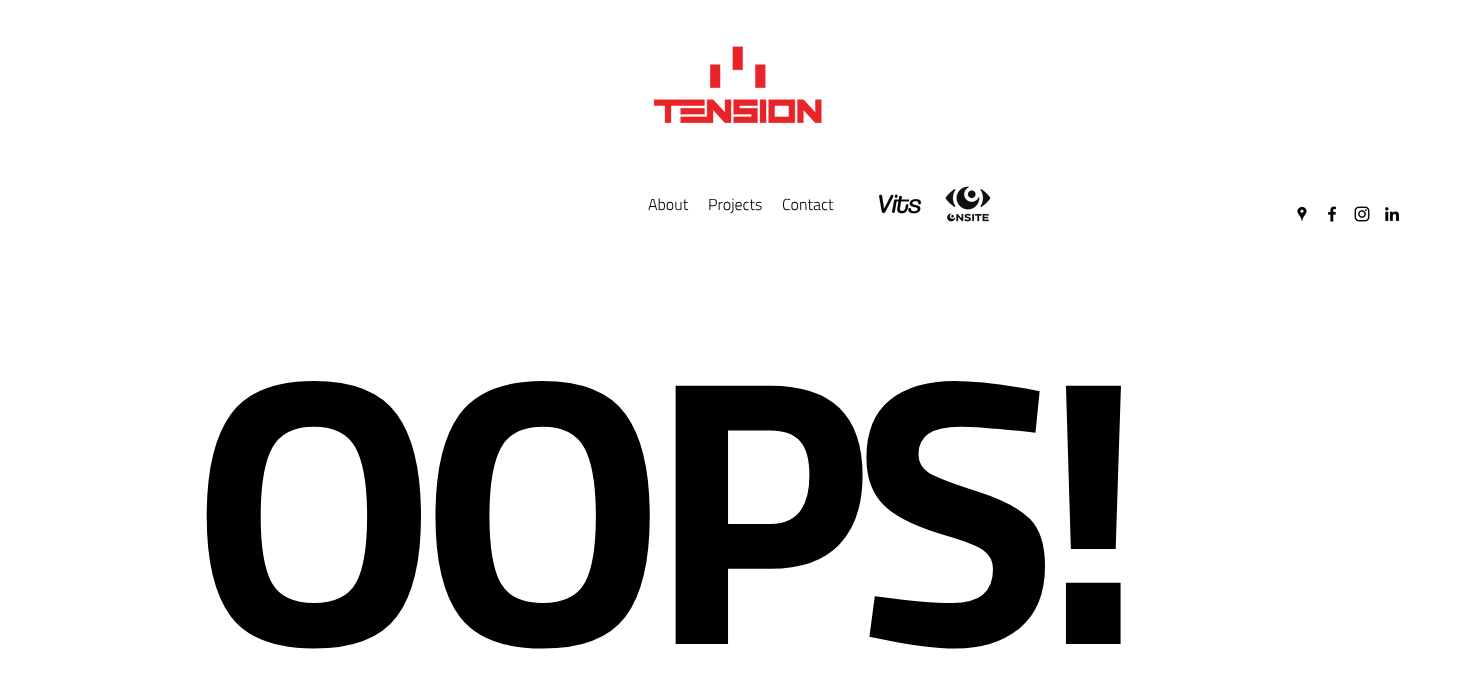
<svg xmlns="http://www.w3.org/2000/svg" width="1482" height="686" viewBox="0 0 1482 686">
  <rect width="100%" height="100%" fill="#fff"/>
  <image x="653" y="46" width="169" height="78" href="img/1.png"/>
  <image x="879" y="194" width="43" height="20" href="img/2.png"/>
  <image x="945" y="186" width="46" height="36" href="img/3.png"/>
  <image x="1297" y="206" width="10" height="15" href="img/4.png"/>
  <image x="1328" y="206" width="9" height="16" href="img/5.png"/>
  <image x="1354" y="206" width="16" height="16" href="img/6.png"/>
  <image x="1385" y="207" width="15" height="15" href="img/7.png"/>
  <g font-family="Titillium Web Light" font-size="16" font-weight="300" fill="#000">
    <text x="648" y="210">About</text>
    <text x="708" y="210">Projects</text>
    <text x="782" y="210">Contact</text>
  </g>
  <text x="190" y="644" font-family="Titillium Web" font-size="380" font-weight="bold" letter-spacing="-19" fill="#000">OOPS!</text>
</svg>
